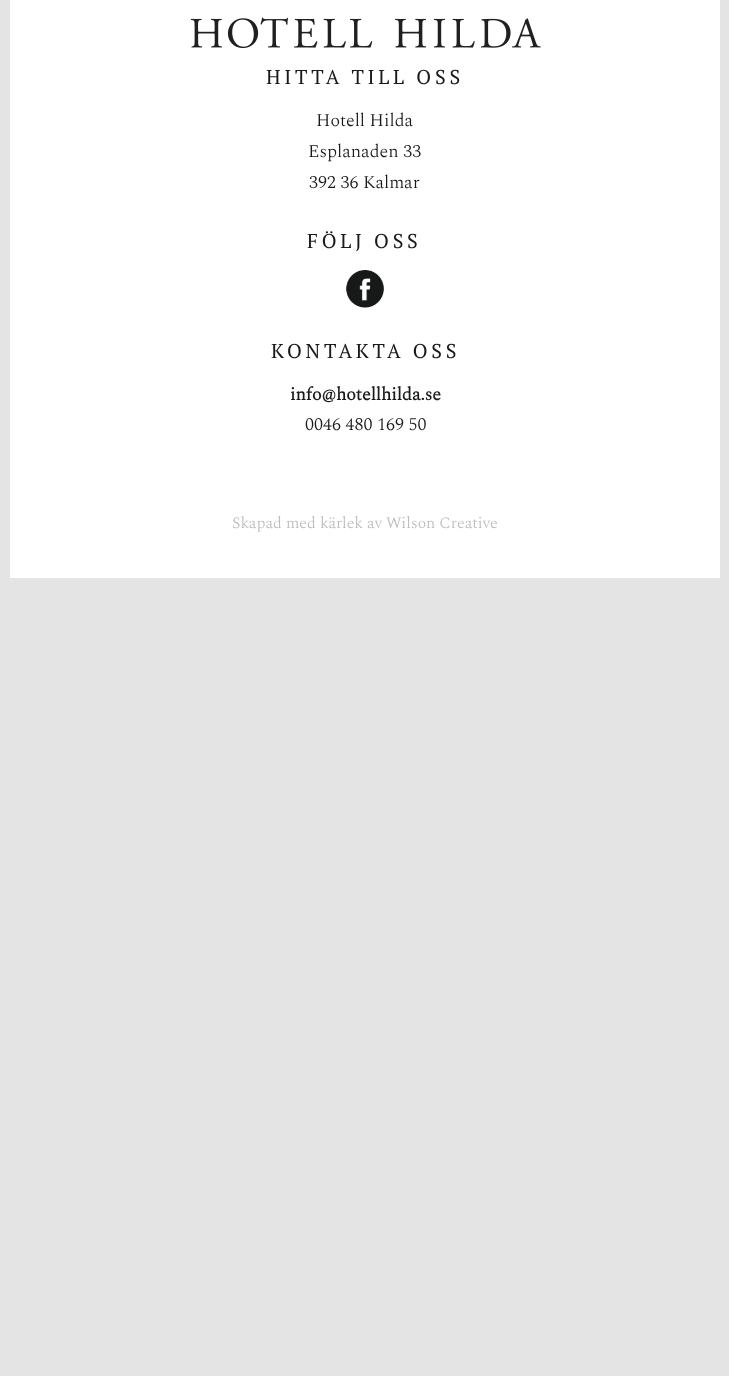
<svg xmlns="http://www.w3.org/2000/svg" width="729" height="1376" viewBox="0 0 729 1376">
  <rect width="100%" height="100%" fill="#e4e4e4"/>
  <path d="M10 0h710v578H10z" fill="#fff"/>
  <image x="190" y="17" width="351" height="31" href="img/2.png"/>
  <image x="191" y="46" width="2" height="1" href="img/1.png"/>
  <image x="346" y="270" width="38" height="38" href="img/3.png"/>
  <text x="266" y="84" font-family="PT Serif" font-size="20" letter-spacing="3.75" fill="#191a1a">HITTA TILL OSS</text>
  <g font-family="Spectral" font-size="18" font-weight="300" fill="#191a1a">
    <text x="316" y="126">Hotell Hilda</text>
    <text x="308" y="157">Esplanaden 33</text>
    <text x="309" y="188">392 36 Kalmar</text>
  </g>
  <g font-family="PT Serif" font-size="20" letter-spacing="3.75" fill="#191a1a">
    <text x="307" y="248">FÖLJ OSS</text>
    <text x="271" y="358">KONTAKTA OSS</text>
  </g>
  <text x="290" y="400" font-family="Spectral" font-size="18" font-weight="bold" fill="#191a1a">info@hotellhilda.se</text>
  <text x="305" y="430" font-family="Spectral" font-size="18" font-weight="300" fill="#191a1a">0046 480 169 50</text>
  <text x="232" y="528" font-family="Spectral" font-size="16" font-weight="300" fill="#bdbdbd">Skapad med kärlek av Wilson Creative</text>
</svg>
